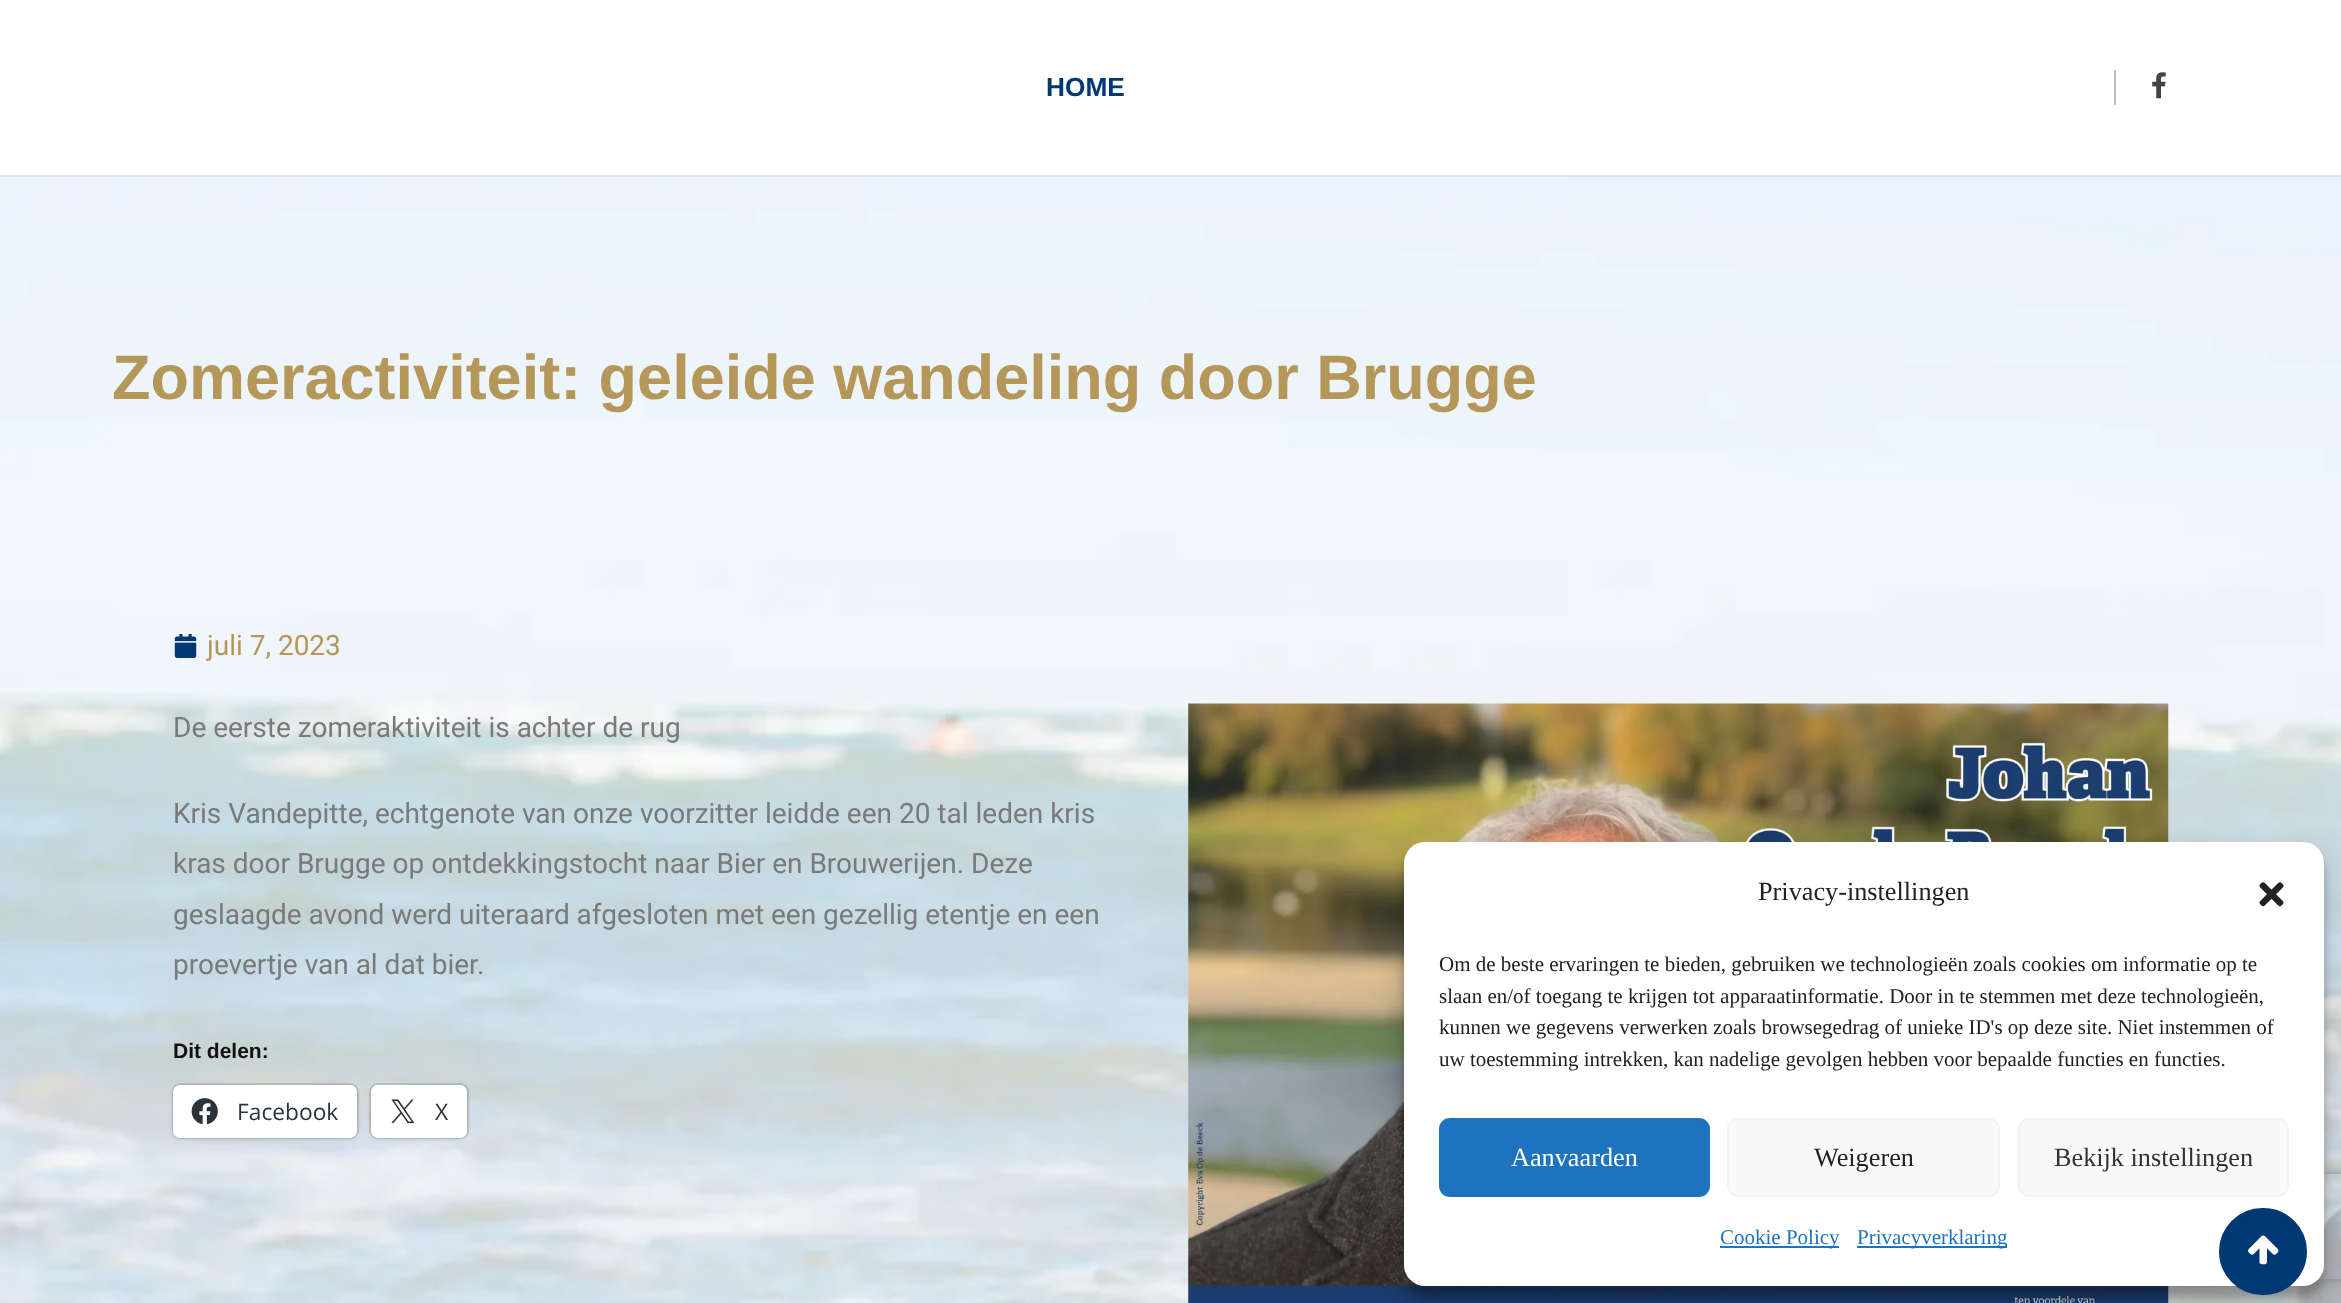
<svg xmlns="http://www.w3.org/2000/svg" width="2341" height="1303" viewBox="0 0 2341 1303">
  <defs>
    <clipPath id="clip1"><path d="M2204 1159H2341V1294H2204ZM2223 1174H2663C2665 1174 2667 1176 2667 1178V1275C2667 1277 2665 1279 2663 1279H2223C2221 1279 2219 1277 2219 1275V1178C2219 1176 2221 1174 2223 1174Z" clip-rule="evenodd"/></clipPath>
  </defs>
  <rect width="100%" height="100%" fill="#fff"/>
  <image x="0" y="177" width="2341" height="1126" href="img/1.png"/>
  <path d="M0 175h2341v2H0z" fill="#dee2e6"/>
  <path d="M2114 70h2v35H2114z" fill="#c0c0c0"/>
  <image x="2152" y="72" width="14" height="27" href="img/2.png"/>
  <image x="174" y="634" width="23" height="24" href="img/3.png"/>
  <rect x="173" y="1084" width="185" height="54" rx="8" fill="none" stroke="#0000001f" stroke-width="2"/>
  <rect x="173" y="1087" width="184" height="52" rx="7" fill="#0000001f" filter="blur(2px)"/>
  <rect x="173" y="1085" width="184" height="53" rx="7" fill="#fff"/>
  <image x="191" y="1098" width="27" height="27" href="img/4.png"/>
  <rect x="370" y="1084" width="98" height="54" rx="8" fill="none" stroke="#0000001f" stroke-width="2"/>
  <rect x="371" y="1087" width="96" height="52" rx="7" fill="#0000001f" filter="blur(2px)"/>
  <rect x="371" y="1085" width="96" height="53" rx="7" fill="#fff"/>
  <image x="391" y="1099" width="24" height="25" href="img/5.png"/>
  <image x="1188" y="703" width="981" height="600" href="img/6.png"/>
  <rect x="1404" y="852" width="920" height="445" rx="21" fill="#0000003b" filter="blur(5px)"/>
  <rect x="1404" y="859" width="920" height="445" rx="21" fill="#00000030" filter="blur(17.5px)"/>
  <g clip-path="url(#clip1)">
    <rect x="2219" y="1174" width="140" height="105" rx="4" fill="#808080" filter="blur(4.5px)"/>
  </g>
  <rect x="1404" y="842" width="920" height="444" rx="21" fill="#fff"/>
  <image x="2259" y="882" width="25" height="25" href="img/7.png"/>
  <rect x="1440" y="1119" width="269" height="77" rx="10" fill="#1e73be" stroke="#1e73be" stroke-width="2"/>
  <rect x="1728" y="1119" width="271" height="77" rx="10" fill="#f9f9f9" stroke="#f2f2f2" stroke-width="2"/>
  <rect x="2019" y="1119" width="269" height="77" rx="10" fill="#f9f9f9" stroke="#f2f2f2" stroke-width="2"/>
  <path d="M1720 1246h119v2H1720z" fill="#1e73be"/>
  <path d="M1857 1246h150v2H1857z" fill="#1e73be"/>
  <rect x="2221" y="1210" width="84" height="83" rx="41.5" fill="#003874" stroke="#003874" stroke-width="4"/>
  <image x="2248" y="1235" width="31" height="30" href="img/8.png"/>
  <text x="1046" y="96" font-family="Liberation Sans" font-size="26.25" font-weight="bold" fill="#003874">HOME</text>
  <text x="112" y="399" font-family="Liberation Sans" font-size="63" font-weight="bold" fill="#b49759">Zomeractiviteit: geleide wandeling door Brugge</text>
  <text x="207" y="655" font-family="Roboto" font-size="28" fill="#b49759">juli 7, 2023</text>
  <g font-family="Roboto" font-size="28" fill="#7a7a7a">
    <text x="173" y="737">De eerste zomeraktiviteit is achter de rug</text>
    <text x="173" y="823">Kris Vandepitte, echtgenote van onze voorzitter leidde een 20 tal leden kris</text>
    <text x="173" y="873">kras door Brugge op ontdekkingstocht naar Bier en Brouwerijen. Deze</text>
    <text x="173" y="924">geslaagde avond werd uiteraard afgesloten met een gezellig etentje en een</text>
    <text x="173" y="974">proevertje van al dat bier.</text>
  </g>
  <text x="173" y="1058" font-family="Liberation Sans" font-size="21" font-weight="bold" fill="#111">Dit delen:</text>
  <g font-family="Open Sans" font-size="22.75" fill="#2c3338">
    <text x="237" y="1120">Facebook</text>
    <text x="435" y="1120">X</text>
  </g>
  <text x="1758" y="900" font-family="Liberation Serif" font-size="26.25" fill="#222">Privacy-instellingen</text>
  <g font-family="Liberation Serif" font-size="21" fill="#222">
    <text x="1439" y="971">Om de beste ervaringen te bieden, gebruiken we technologieën zoals cookies om informatie op te</text>
    <text x="1439" y="1003">slaan en/of toegang te krijgen tot apparaatinformatie. Door in te stemmen met deze technologieën,</text>
    <text x="1439" y="1034">kunnen we gegevens verwerken zoals browsegedrag of unieke ID's op deze site. Niet instemmen of</text>
    <text x="1439" y="1066">uw toestemming intrekken, kan nadelige gevolgen hebben voor bepaalde functies en functies.</text>
  </g>
  <text x="1511" y="1166" font-family="Liberation Serif" font-size="26.25" fill="#fff">Aanvaarden</text>
  <text x="1814" y="1166" font-family="Liberation Serif" font-size="26.25" fill="#222">Weigeren</text>
  <text x="2054" y="1166" font-family="Liberation Serif" font-size="26.25" fill="#333">Bekijk instellingen</text>
  <g font-family="Liberation Serif" font-size="21" fill="#1e73be">
    <text x="1720" y="1244">Cookie Policy</text>
    <text x="1857" y="1244">Privacyverklaring</text>
  </g>
</svg>
